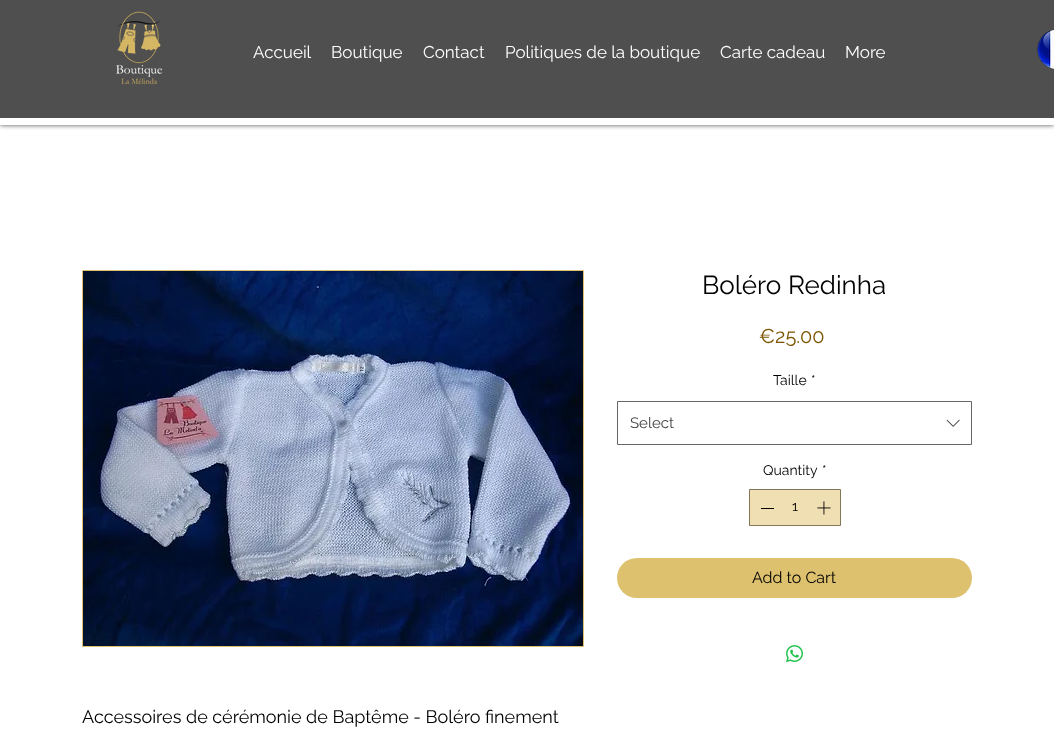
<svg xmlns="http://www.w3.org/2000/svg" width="1054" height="743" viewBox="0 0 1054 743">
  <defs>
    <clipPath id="clip1"><path d="M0 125h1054v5H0z"/></clipPath>
  </defs>
  <rect width="100%" height="100%" fill="#fff"/>
  <g clip-path="url(#clip1)">
    <path d="M0 0h1054v125H0z" fill="#000000b3" filter="blur(2.5px)"/>
  </g>
  <path d="M0 0h1054v118H0z" fill="#4f4f4f"/>
  <image x="115" y="11" width="48" height="74" href="img/1.png"/>
  <image x="1037" y="29" width="17" height="41" href="img/2.png"/>
  <path d="M617.5 401.5h354v43H617.5z" fill="none" stroke="#666"/>
  <image x="946" y="419" width="14" height="8" href="img/3.png"/>
  <path d="M749.5 489.5h91v36H749.5z" fill="#efdfb2" stroke="#817658"/>
  <path d="M761 508h13v1H761z" fill="#000"/>
  <image x="817" y="501" width="14" height="14" href="img/4.png"/>
  <rect x="617" y="558" width="355" height="40" rx="20" fill="#dec16e"/>
  <image x="786" y="645" width="17" height="17" href="img/5.png"/>
  <path d="M82.5 270.5h501v376H82.5z" fill="none" stroke="#dec16e"/>
  <image x="83" y="271" width="500" height="375" href="img/6.png"/>
  <g font-family="Raleway" font-size="17" fill="#fff">
    <text x="253" y="58">Accueil</text>
    <text x="331" y="58">Boutique</text>
    <text x="423" y="58">Contact</text>
    <text x="505" y="58">Politiques de la boutique</text>
    <text x="720" y="58">Carte cadeau</text>
    <text x="845" y="58">More</text>
  </g>
  <text x="702" y="294" font-family="Raleway" font-size="26" fill="#000">Boléro Redinha</text>
  <text x="759" y="343" font-family="Raleway" font-size="20" fill="#7b5400">€25.00</text>
  <g font-family="Raleway" font-size="14" fill="#000">
    <text x="773" y="385">Taille</text>
    <text x="811" y="385">*</text>
  </g>
  <text x="630" y="428" font-family="Raleway" font-size="15" fill="#444">Select</text>
  <g font-family="Raleway" font-size="14" fill="#000">
    <text x="763" y="475">Quantity</text>
    <text x="822" y="475">*</text>
    <text x="792" y="511">1</text>
  </g>
  <text x="752" y="583" font-family="Raleway" font-size="16" fill="#000">Add to Cart</text>
  <text x="82" y="723" font-family="Raleway" font-size="18" fill="#000">Accessoires de cérémonie de Baptême - Boléro finement</text>
</svg>
